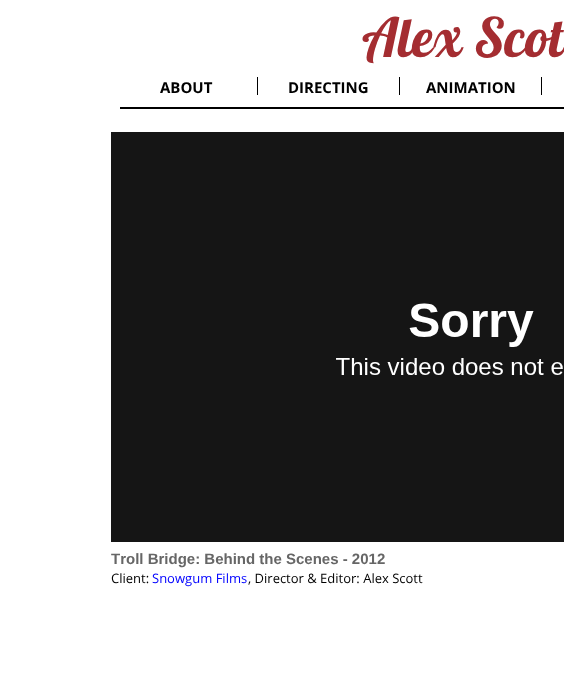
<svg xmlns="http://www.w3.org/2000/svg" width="564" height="673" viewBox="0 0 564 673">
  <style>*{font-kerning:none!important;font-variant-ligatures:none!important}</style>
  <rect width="100%" height="100%" fill="#fff"/>
  <path d="M257 77h1v18H257z" fill="#000"/>
  <path d="M399 77h1v18H399z" fill="#000"/>
  <path d="M541 77h1v18H541z" fill="#000"/>
  <path d="M120 107h444v2H120z" fill="#000"/>
  <image x="111" y="132" width="453" height="410" href="img/1.png"/>
  <text x="362" y="57" font-family="Lobster" font-size="54" fill="#a42d31">Alex</text>
  <text x="474" y="57" font-family="Lobster" font-size="54" fill="#a42d31">Scot</text>
  <g font-family="Open Sans" font-size="15" font-weight="bold" fill="#000">
    <text x="160" y="93">ABOUT</text>
    <text x="288" y="93">DIRECTING</text>
    <text x="426" y="93">ANIMATION</text>
  </g>
  <text x="111" y="564" font-family="Liberation Sans" font-size="15" font-weight="bold" fill="#666">Troll Bridge: Behind the Scenes - 2012</text>
  <text x="111" y="583" font-family="Open Sans" font-size="13" fill="#000">Client:</text>
  <text x="152" y="583" font-family="Open Sans" font-size="13" fill="#00f">Snowgum Films</text>
  <text x="248" y="583" font-family="Open Sans" font-size="13" fill="#000">, Director &amp; Editor: Alex Scott</text>
</svg>
